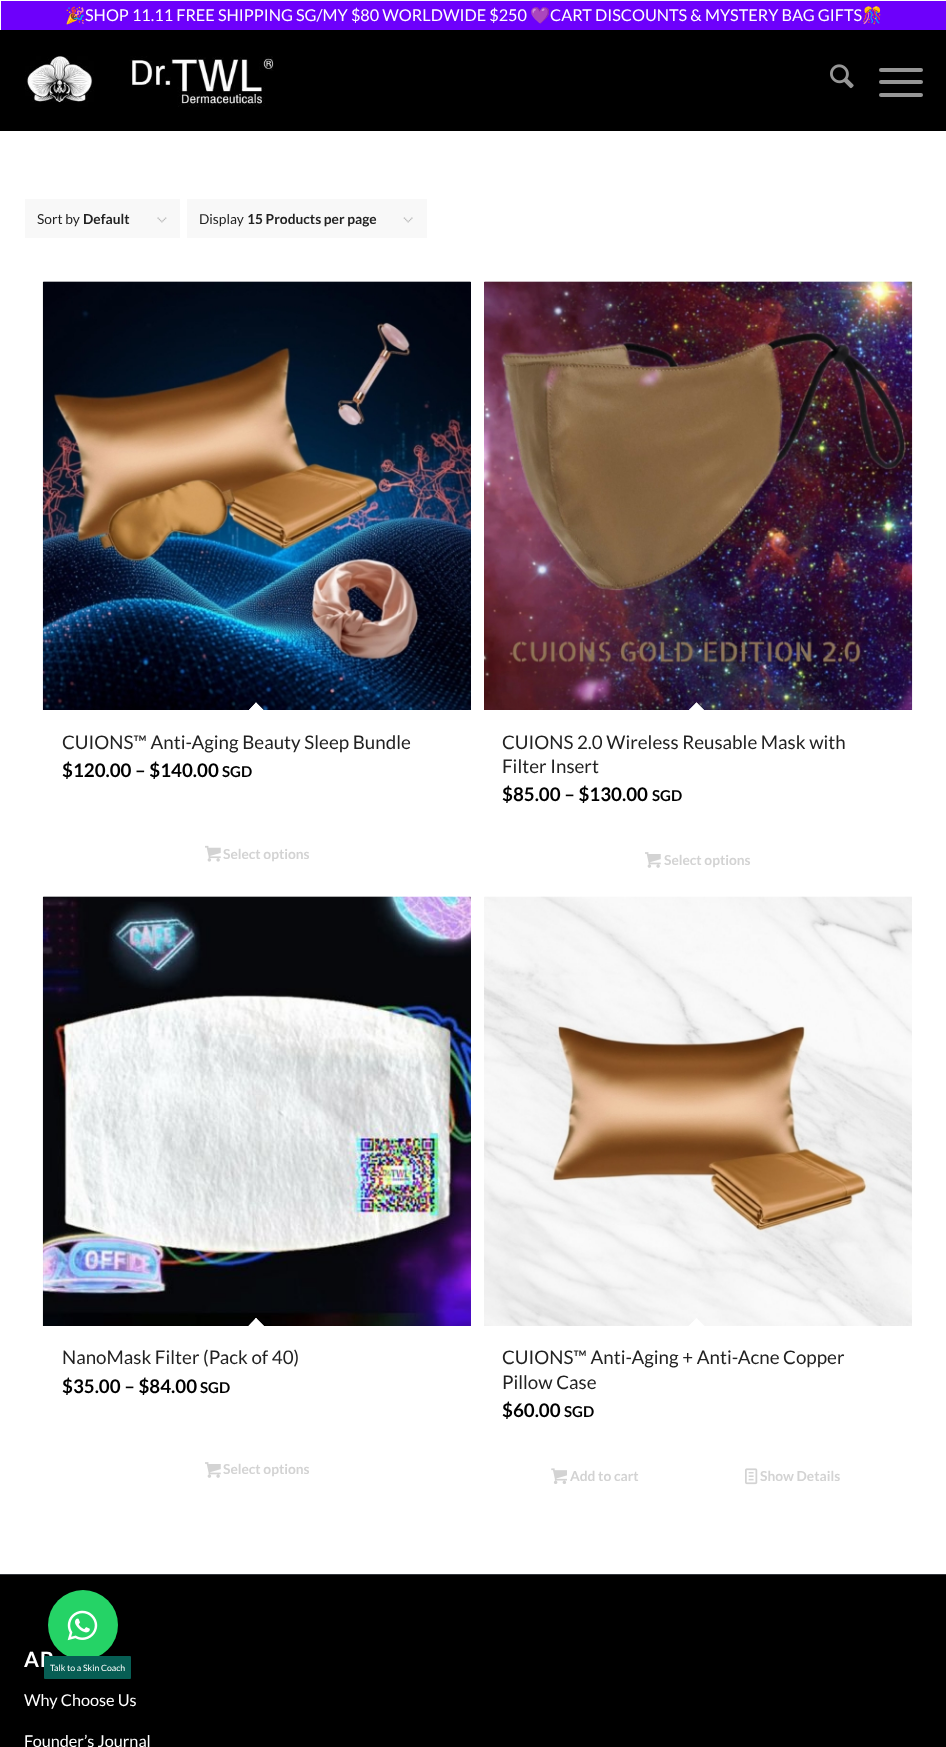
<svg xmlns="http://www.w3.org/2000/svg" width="946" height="1747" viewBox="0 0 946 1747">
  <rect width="100%" height="100%" fill="#000"/>
  <path d="M1 1h945v29H1z" fill="#6d00fb"/>
  <path d="M0 0h946v1H0z" fill="#fff"/>
  <path d="M0 0h1v30H0z" fill="#fff"/>
  <image x="25" y="56" width="249" height="51" href="img/1.png"/>
  <image x="830" y="64" width="24" height="25" href="img/2.png"/>
  <rect x="879" y="80" width="44" height="4" rx="2" fill="#969696"/>
  <rect x="879" y="68" width="44" height="4" rx="2" fill="#969696"/>
  <rect x="879" y="93" width="44" height="4" rx="2" fill="#969696"/>
  <path d="M0 131h946v1443H0z" fill="#fff"/>
  <path d="M25 199h155v39H25z" fill="#f8f8f8"/>
  <image x="157" y="217" width="10" height="6" href="img/3.png"/>
  <path d="M187 199h240v39H187z" fill="#f8f8f8"/>
  <image x="403" y="217" width="10" height="6" href="img/4.png"/>
  <image x="42" y="281" width="429" height="429" href="img/5.png"/>
  <path d="M256 702.5L265 711.5L256 720.5L247.5 711.5Z" fill="#fff"/>
  <path d="M256 702.5L265 711.5L264 712.5L255 703.5Z" fill="#fff"/>
  <path d="M256 702.5L257 703.5L248 712.5L247.5 711.5Z" fill="#fff"/>
  <image x="205" y="845" width="16" height="17" href="img/6.png"/>
  <image x="484" y="281" width="429" height="429" href="img/7.png"/>
  <path d="M696.5 702.5L705.5 711.5L696.5 720.5L687.5 711.5Z" fill="#fff"/>
  <path d="M696.5 702.5L705.5 711.5L704.5 712.5L695.5 703.5Z" fill="#fff"/>
  <path d="M696.5 702.5L697.5 703.5L688.5 712.5L687.5 711.5Z" fill="#fff"/>
  <image x="645" y="852" width="16" height="16" href="img/8.png"/>
  <image x="42" y="896" width="429" height="430" href="img/9.png"/>
  <path d="M256 1318L265 1327L256 1336L247.5 1327Z" fill="#fff"/>
  <path d="M256 1318L265 1327L264 1328L255 1319Z" fill="#fff"/>
  <path d="M256 1318L257 1319L248 1328L247.5 1327Z" fill="#fff"/>
  <image x="205" y="1462" width="16" height="16" href="img/8.png"/>
  <image x="484" y="896" width="428" height="430" href="img/10.png"/>
  <path d="M696.5 1318L705.5 1327L696.5 1336L687.5 1327Z" fill="#fff"/>
  <image x="551" y="1468" width="16" height="16" href="img/11.png"/>
  <image x="745" y="1468" width="13" height="17" href="img/12.png"/>
  <path d="M0 1574h946v1H0z" fill="#35383c"/>
  <text x="65" y="21" font-family="Noto Color Emoji" font-size="16.25" fill="#fff">🎉</text>
  <text x="85" y="21" font-family="Lato" font-size="16.25" fill="#fff">SHOP 11.11 FREE SHIPPING SG/MY $80 WORLDWIDE $250</text>
  <text x="530" y="21" font-family="Noto Color Emoji" font-size="16.25" fill="#fff">💜</text>
  <text x="550" y="21" font-family="Lato" font-size="16.25" fill="#fff">CART DISCOUNTS &amp; MYSTERY BAG GIFTS</text>
  <text x="862" y="21" font-family="Noto Color Emoji" font-size="16.25" fill="#fff">🎊</text>
  <text x="37" y="224" font-family="Lato" font-size="13.75" fill="#222">Sort by</text>
  <text x="83" y="224" font-family="Lato" font-size="13.75" font-weight="bold" fill="#222">Default</text>
  <text x="199" y="224" font-family="Lato" font-size="13.75" fill="#222">Display</text>
  <text x="247" y="224" font-family="Lato" font-size="13.75" font-weight="bold" fill="#222">15 Products per page</text>
  <text x="62" y="749" font-family="Lato" font-size="18.75" fill="#222">CUIONS™ Anti-Aging Beauty Sleep Bundle</text>
  <text x="62" y="777" font-family="Lato" font-size="18.75" font-weight="bold" fill="#000">$120.00 – $140.00</text>
  <text x="222" y="777" font-family="Lato" font-size="15" font-weight="bold" fill="#000">SGD</text>
  <text x="223" y="859" font-family="Lato" font-size="13.75" font-weight="bold" fill="#d3d3d3">Select options</text>
  <g font-family="Lato" font-size="18.75" fill="#222">
    <text x="502" y="749">CUIONS 2.0 Wireless Reusable Mask with</text>
    <text x="502" y="773">Filter Insert</text>
  </g>
  <text x="502" y="801" font-family="Lato" font-size="18.75" font-weight="bold" fill="#000">$85.00 – $130.00</text>
  <text x="652" y="801" font-family="Lato" font-size="15" font-weight="bold" fill="#000">SGD</text>
  <text x="664" y="865" font-family="Lato" font-size="13.75" font-weight="bold" fill="#d3d3d3">Select options</text>
  <text x="62" y="1364" font-family="Lato" font-size="18.75" fill="#222">NanoMask Filter (Pack of 40)</text>
  <text x="62" y="1393" font-family="Lato" font-size="18.75" font-weight="bold" fill="#000">$35.00 – $84.00</text>
  <text x="200" y="1393" font-family="Lato" font-size="15" font-weight="bold" fill="#000">SGD</text>
  <text x="223" y="1474" font-family="Lato" font-size="13.75" font-weight="bold" fill="#d3d3d3">Select options</text>
  <g font-family="Lato" font-size="18.75" fill="#222">
    <text x="502" y="1364">CUIONS™ Anti-Aging + Anti-Acne Copper</text>
    <text x="502" y="1389">Pillow Case</text>
  </g>
  <text x="502" y="1417" font-family="Lato" font-size="18.75" font-weight="bold" fill="#000">$60.00</text>
  <text x="564" y="1417" font-family="Lato" font-size="15" font-weight="bold" fill="#000">SGD</text>
  <g font-family="Lato" font-size="13.75" font-weight="bold" fill="#d3d3d3">
    <text x="570" y="1481">Add to cart</text>
    <text x="760" y="1481">Show Details</text>
  </g>
  <text x="24" y="1667" font-family="Lato" font-size="21" font-weight="bold" letter-spacing="1" fill="#fff">AB</text>
  <g font-family="Lato" font-size="16.25" fill="#fff">
    <text x="24" y="1706">Why Choose Us</text>
    <text x="24" y="1747">Founder’s Journal</text>
  </g>
  <circle cx="83" cy="1625" r="35" fill="#25d366"/>
  <image x="67" y="1610" width="31" height="31" href="img/13.png"/>
  <rect x="44" y="1656" width="87" height="23" rx="1" fill="#075e54"/>
  <text x="50" y="1671" font-family="Lato" font-size="8.75" fill="#fff">Talk to a Skin Coach</text>
</svg>
